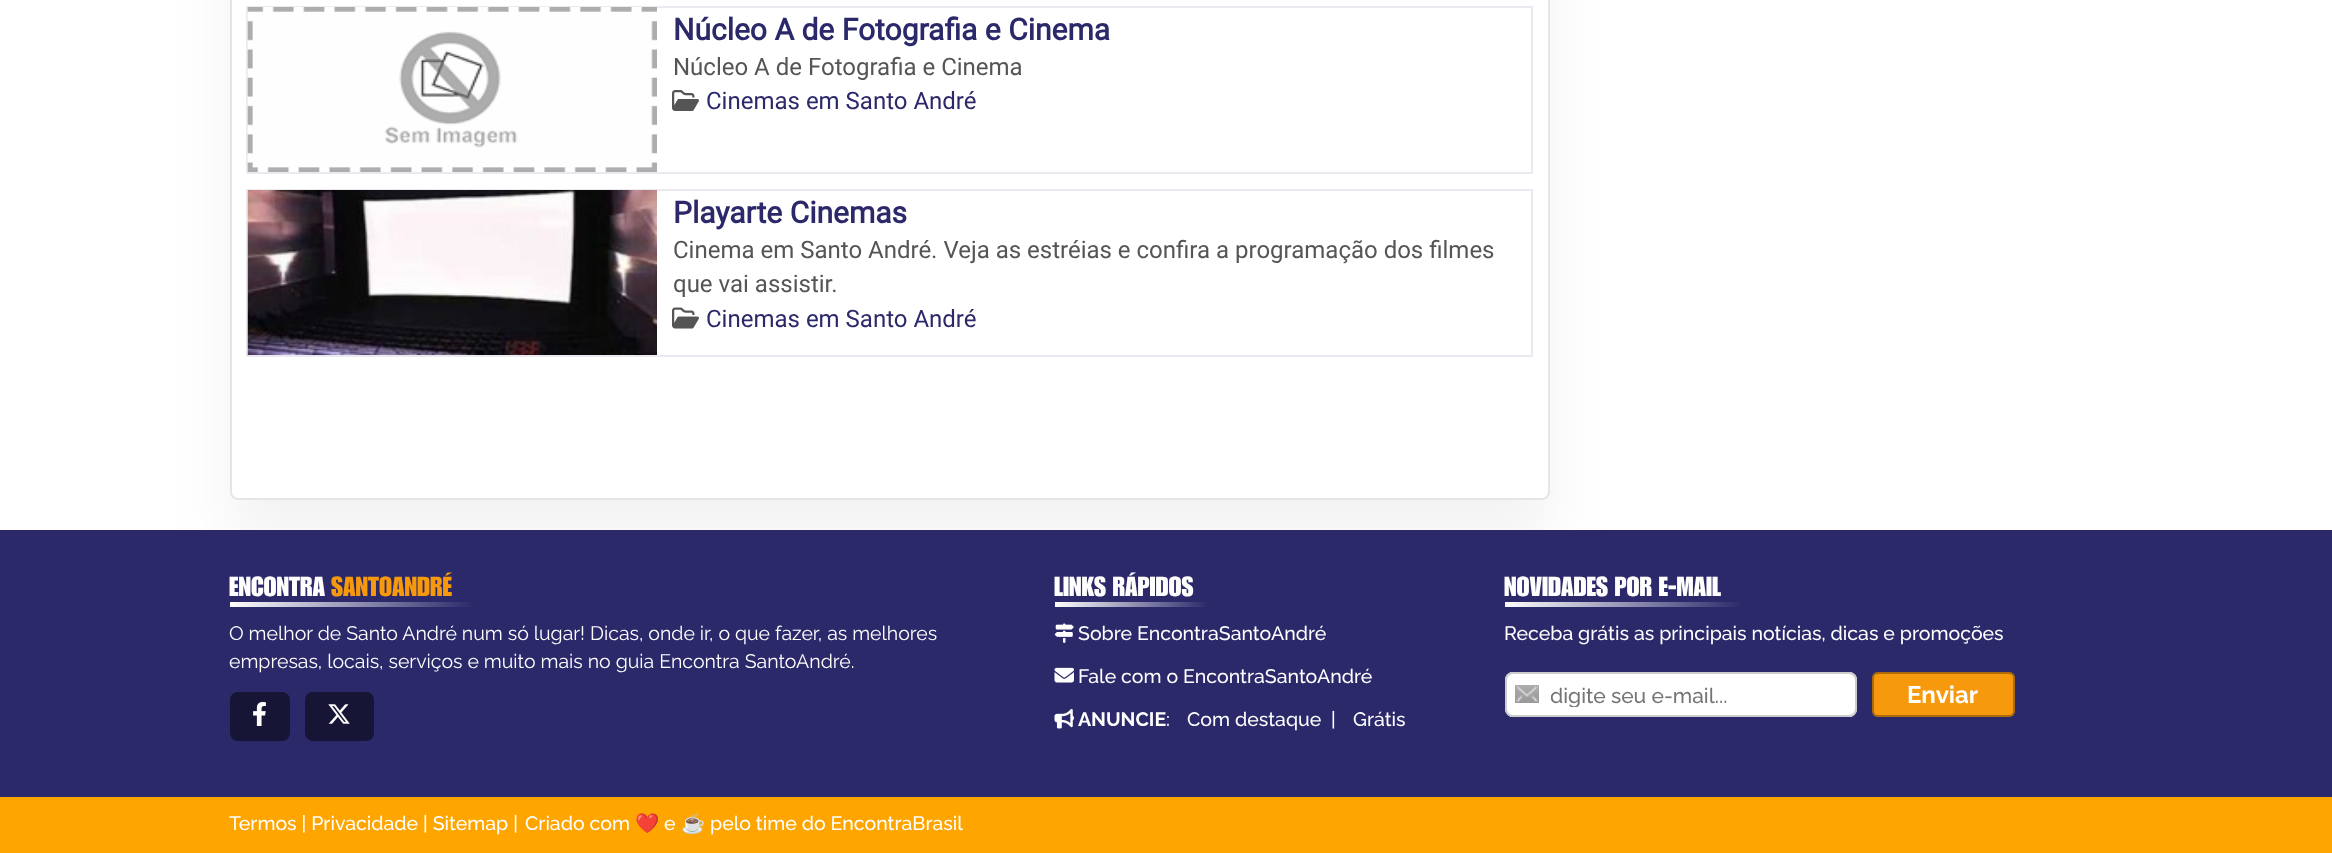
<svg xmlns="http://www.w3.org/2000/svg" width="2332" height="853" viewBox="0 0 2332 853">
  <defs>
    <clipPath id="clip1"><path d="M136 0H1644V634H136ZM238-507H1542C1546.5-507 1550-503.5 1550-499V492C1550 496.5 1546.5 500 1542 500H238C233.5 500 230 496.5 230 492V-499C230-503.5 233.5-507 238-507Z" clip-rule="evenodd"/></clipPath>
    <linearGradient id="g1" gradientUnits="userSpaceOnUse" x1="230" y1="604" x2="474" y2="604"><stop offset="0" stop-color="#fff"/><stop offset="1" stop-color="#2b296a"/></linearGradient>
    <linearGradient id="g2" gradientUnits="userSpaceOnUse" x1="1055" y1="604" x2="1208" y2="604"><stop offset="0" stop-color="#fff"/><stop offset="1" stop-color="#2b296a"/></linearGradient>
    <linearGradient id="g3" gradientUnits="userSpaceOnUse" x1="1505" y1="604" x2="1743" y2="604"><stop offset="0" stop-color="#fff"/><stop offset="1" stop-color="#2b296a"/></linearGradient>
    <clipPath id="clip2"><path d="M1551 683h305v24H1551z"/></clipPath>
  </defs>
  <rect width="100%" height="100%" fill="#fff"/>
  <g clip-path="url(#clip1)">
    <rect x="230" y="-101" width="1320" height="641" rx="8" fill="#0000000d" filter="blur(31px)"/>
  </g>
  <rect x="231" y="-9" width="1318" height="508" rx="7" fill="none" stroke="#0000001a" stroke-width="2"/>
  <path d="M247 7h1285v166H247z" fill="none" stroke="#eaeaf0" stroke-width="2"/>
  <image x="247" y="7" width="410" height="165" href="img/1.png"/>
  <image x="672" y="90" width="27" height="21" href="img/2.png"/>
  <path d="M247 190h1285v166H247z" fill="none" stroke="#eaeaf0" stroke-width="2"/>
  <image x="247" y="190" width="410" height="165" href="img/3.png"/>
  <image x="672" y="307" width="27" height="22" href="img/4.png"/>
  <path d="M0 530h2332v267H0z" fill="#2b296a"/>
  <path d="M230 602h244v5H230z" fill="url(#g1)"/>
  <rect x="230" y="692" width="60" height="49" rx="8" fill="#161535"/>
  <image x="253" y="702" width="13" height="24" href="img/5.png"/>
  <rect x="305" y="692" width="69" height="49" rx="8" fill="#161535"/>
  <image x="328" y="704" width="22" height="20" href="img/6.png"/>
  <path d="M1055 602h153v5H1055z" fill="url(#g2)"/>
  <image x="1054" y="623" width="20" height="20" href="img/7.png"/>
  <image x="1054" y="667" width="20" height="16" href="img/8.png"/>
  <image x="1054" y="709" width="20" height="20" href="img/9.png"/>
  <path d="M1505 602h238v5H1505z" fill="url(#g3)"/>
  <rect x="1505" y="672" width="352" height="45" rx="8" fill="#fff"/>
  <image x="1515" y="685" width="24" height="18" href="img/10.png"/>
  <rect x="1506" y="673" width="350" height="43" rx="7" fill="none" stroke="#ccc" stroke-width="2"/>
  <rect x="1872" y="672" width="143" height="45" rx="6" fill="#f6990d"/>
  <rect x="1873" y="673" width="141" height="43" rx="5" fill="none" stroke="#0000004d" stroke-width="2"/>
  <path d="M0 797h2332v56H0z" fill="#ffa500"/>
  <text x="673" y="40" font-family="Roboto" font-size="30" font-weight="bold" fill="#2b296a">Núcleo A de Fotografia e Cinema</text>
  <text x="673" y="75" font-family="Roboto" font-size="24" fill="#555">Núcleo A de Fotografia e Cinema</text>
  <text x="706" y="109" font-family="Roboto" font-size="24" fill="#2b296a">Cinemas em Santo André</text>
  <text x="673" y="223" font-family="Roboto" font-size="30" font-weight="bold" fill="#2b296a">Playarte Cinemas</text>
  <g font-family="Roboto" font-size="24" fill="#555">
    <text x="673" y="258">Cinema em Santo André. Veja as estréias e confira a programação dos filmes</text>
    <text x="673" y="292">que vai assistir.</text>
  </g>
  <text x="706" y="327" font-family="Roboto" font-size="24" fill="#2b296a">Cinemas em Santo André</text>
  <text x="229" y="596" font-family="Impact" font-size="27" font-weight="500" fill="#fefefe">ENCONTRA</text>
  <text x="331" y="596" font-family="Impact" font-size="27" font-weight="500" fill="#f6990d">SANTOANDRÉ</text>
  <g font-family="Raleway" font-size="19.5" fill="#fefefe">
    <text x="229" y="640">O melhor de Santo André num só lugar! Dicas, onde ir, o que fazer, as melhores</text>
    <text x="229" y="668">empresas, locais, serviços e muito mais no guia Encontra SantoAndré.</text>
  </g>
  <text x="1054" y="596" font-family="Impact" font-size="27" font-weight="500" fill="#fefefe">LINKS RÁPIDOS</text>
  <g font-family="Raleway" font-size="19.5" font-weight="500" fill="#fefefe">
    <text x="1078" y="640">Sobre EncontraSantoAndré</text>
    <text x="1078" y="683">Fale com o EncontraSantoAndré</text>
  </g>
  <text x="1078" y="726" font-family="Raleway" font-size="19.5" font-weight="bold" fill="#fefefe">ANUNCIE</text>
  <g font-family="Raleway" font-size="19.5" font-weight="500" fill="#fefefe">
    <text x="1166" y="726">:</text>
    <text x="1187" y="726">Com destaque</text>
    <text x="1331" y="726">|</text>
    <text x="1353" y="726">Grátis</text>
  </g>
  <text x="1504" y="596" font-family="Impact" font-size="27" font-weight="500" fill="#fefefe">NOVIDADES POR E-MAIL</text>
  <text x="1504" y="640" font-family="Raleway" font-size="19.5" font-weight="500" fill="#fefefe">Receba grátis as principais notícias, dicas e promoções</text>
  <g clip-path="url(#clip2)">
    <text x="1550" y="703" font-family="Raleway" font-size="21" font-weight="500" fill="#757575">digite seu e-mail...</text>
  </g>
  <text x="1907" y="703" font-family="Raleway" font-size="24" font-weight="bold" fill="#fefefe">Enviar</text>
  <g font-family="Raleway" font-size="19.5" font-weight="500" fill="#fefefe">
    <text x="229" y="830">Termos | Privacidade | Sitemap |</text>
    <text x="525" y="830">Criado com</text>
  </g>
  <text x="635" y="830" font-family="Noto Color Emoji" font-size="19.5" fill="#fefefe">❤️</text>
  <text x="664" y="830" font-family="Raleway" font-size="19.5" font-weight="500" fill="#fefefe">e</text>
  <text x="681" y="830" font-family="Noto Color Emoji" font-size="19.5" fill="#fefefe">☕</text>
  <text x="710" y="830" font-family="Raleway" font-size="19.5" font-weight="500" fill="#fefefe">pelo time do EncontraBrasil</text>
</svg>
